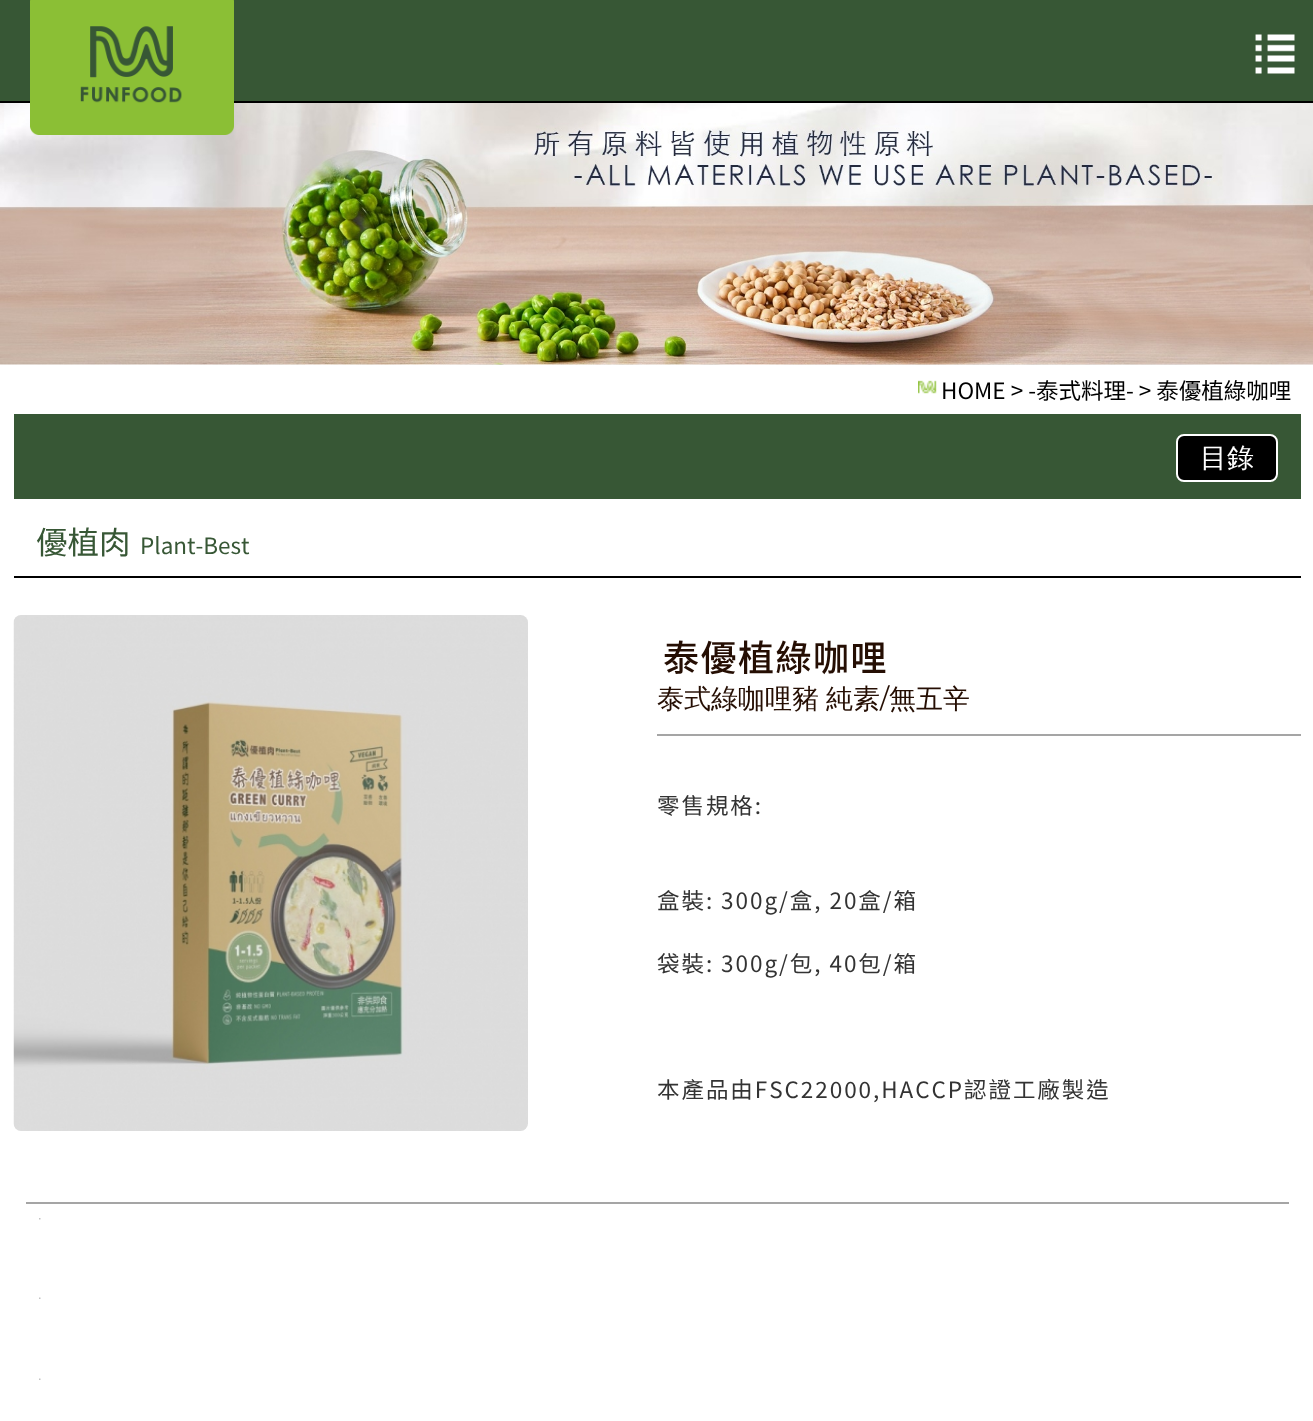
<svg xmlns="http://www.w3.org/2000/svg" width="1313" height="1421" viewBox="0 0 1313 1421">
  <style>*{font-kerning:none!important;font-variant-ligatures:none!important}</style>
  <rect width="100%" height="100%" fill="#fff"/>
  <path d="M0 0h1313v101H0z" fill="#375735"/>
  <path d="M0 101h1313v2H0z" fill="#000"/>
  <image x="0" y="103" width="1313" height="262" href="img/3.png"/>
  <image x="30" y="0" width="204" height="135" href="img/1.png"/>
  <image x="1255" y="34" width="40" height="40" href="img/2.png"/>
  <image x="918" y="380" width="19" height="14" href="img/4.png"/>
  <path d="M14 414h1287v85H14z" fill="#375735"/>
  <rect x="1177" y="435" width="100" height="46" rx="7" fill="#000" stroke="#fff" stroke-width="2"/>
  <path d="M14 576h1287v2H14z" fill="#000"/>
  <image x="13" y="615" width="515" height="516" href="img/5.png"/>
  <path d="M657 734h644v2H657z" fill="#a5a5a5"/>
  <path d="M26 1202h1263v2H26z" fill="#a5a5a5"/>
  <image x="39" y="1218" width="2" height="2" href="img/6.png"/>
  <image x="39" y="1297" width="2" height="2" href="img/7.png"/>
  <image x="39" y="1378" width="2" height="2" href="img/7.png"/>
  <text x="941" y="399" font-family="Noto Sans TC" font-size="22.5" fill="#000">HOME &gt; -泰式料理- &gt; 泰優植綠咖哩</text>
  <text x="1200" y="467" font-family="WenQuanYi Zen Hei" font-size="27" font-weight="500" fill="#fff">目錄</text>
  <text x="36" y="554" font-family="Noto Sans TC" font-size="31.5" fill="#375735">優植肉</text>
  <text x="140" y="554" font-family="Noto Sans TC" font-size="22.5" fill="#375735">Plant-Best</text>
  <text x="663" y="671" font-family="Noto Sans TC" font-size="36" font-weight="500" letter-spacing="1.5" fill="#250e03">泰優植綠咖哩</text>
  <text x="657" y="708" word-spacing="-1" font-family="WenQuanYi Zen Hei" font-size="27" font-weight="500" fill="#250e03">泰式綠咖哩豬 純素</text>
  <text x="880" y="708" font-family="Montserrat" font-size="27" fill="#250e03">/</text>
  <text x="889" y="708" font-family="WenQuanYi Zen Hei" font-size="27" font-weight="500" fill="#250e03">無五辛</text>
  <g font-family="Noto Sans TC" font-size="22.5" letter-spacing="1.95" fill="#333">
    <text x="657" y="814">零售規格:</text>
    <text x="657" y="909">盒裝: 300g/盒, 20盒/箱</text>
    <text x="657" y="972">袋裝: 300g/包, 40包/箱</text>
    <text x="657" y="1098">本產品由FSC22000,HACCP認證工廠製造</text>
  </g>
</svg>
